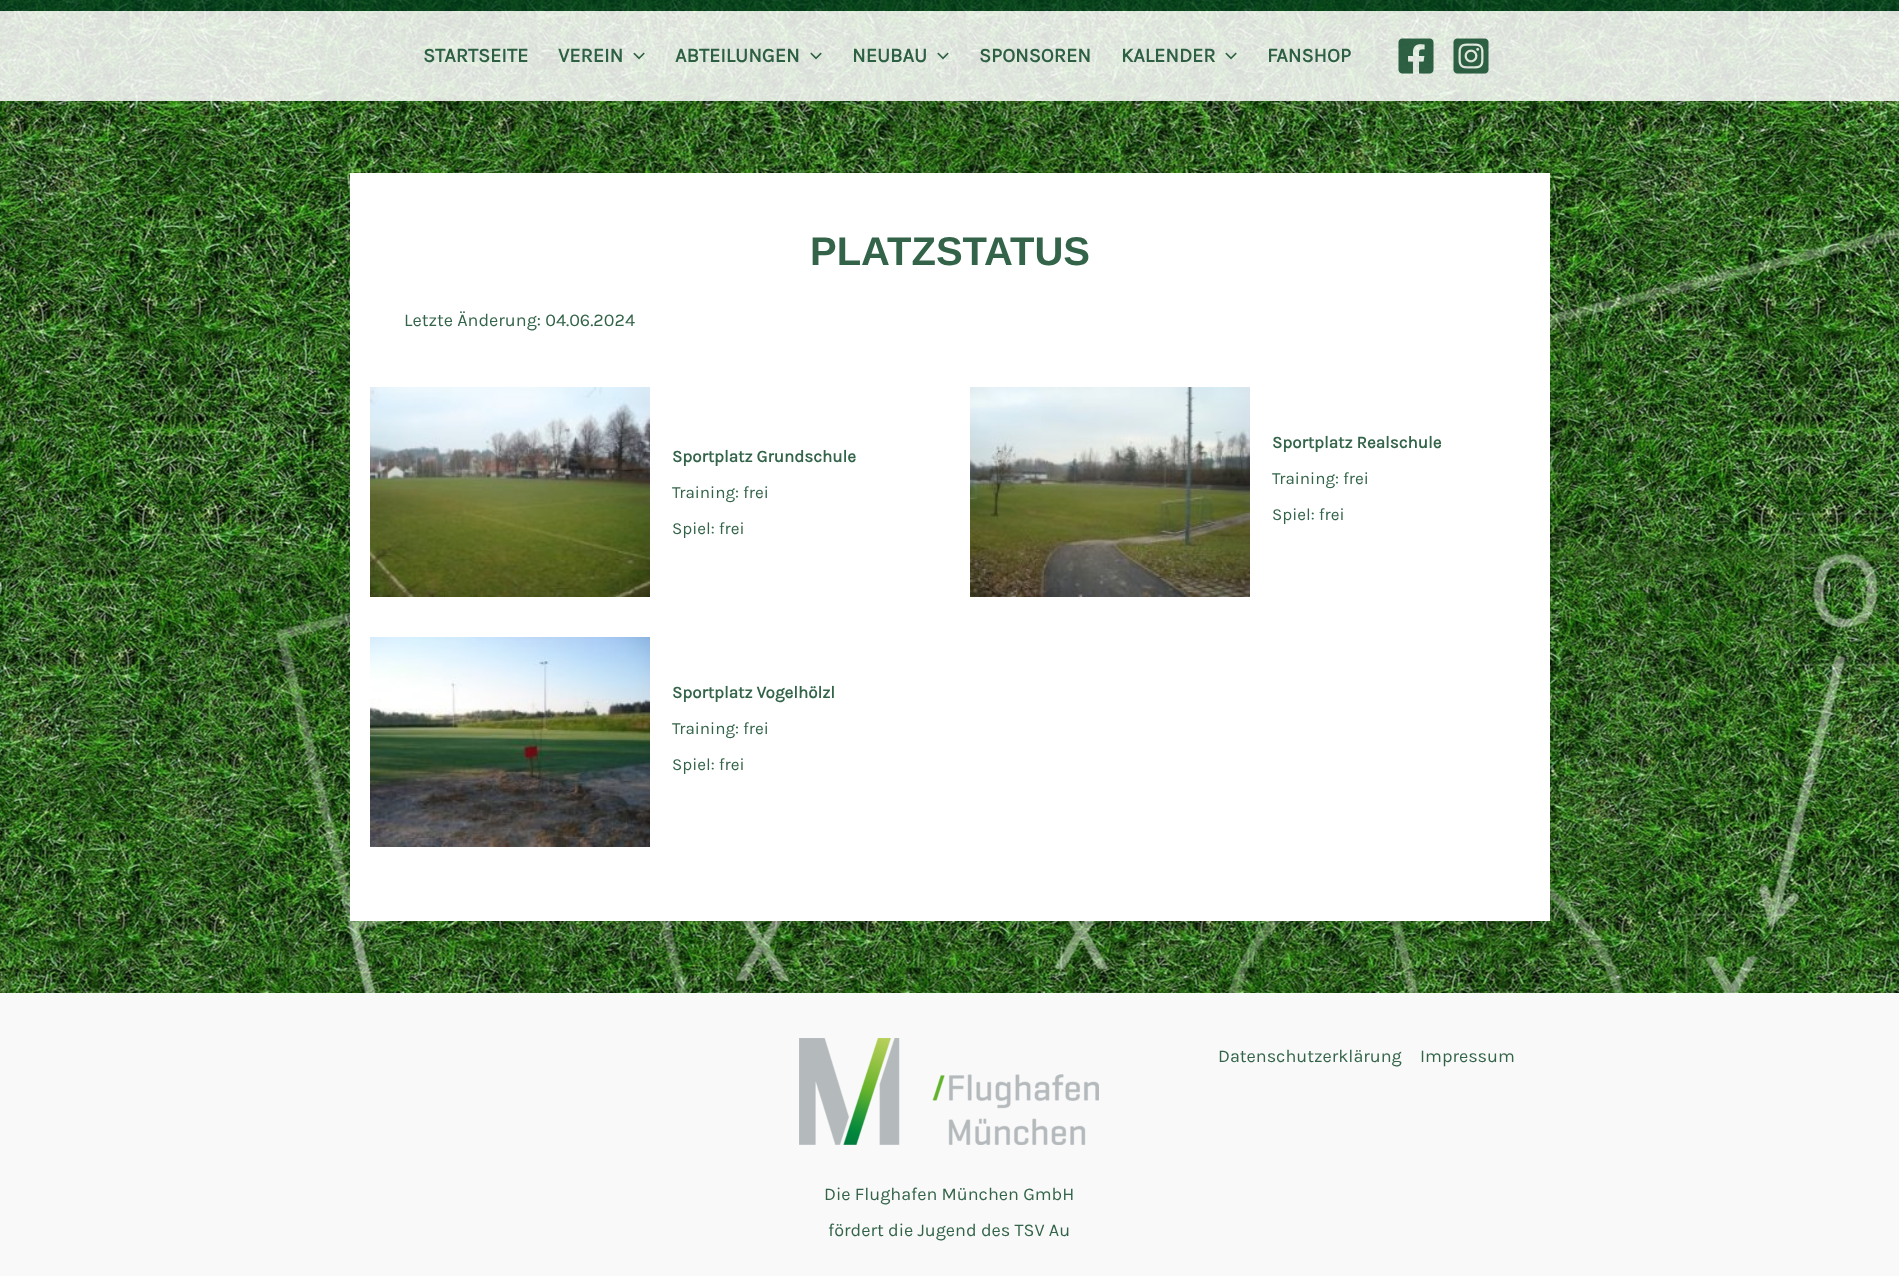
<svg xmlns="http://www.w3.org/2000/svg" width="1899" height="1276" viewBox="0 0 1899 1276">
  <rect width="100%" height="100%" fill="#fff"/>
  <image x="0" y="0" width="1899" height="993" href="img/1.png"/>
  <path d="M0 0h1899v11H0z" fill="#003d1ccc"/>
  <path d="M0 11h1899v90H0z" fill="#ffffffd9"/>
  <image x="633" y="52" width="12" height="8" href="img/2.png"/>
  <image x="810" y="52" width="12" height="8" href="img/3.png"/>
  <image x="937" y="52" width="12" height="8" href="img/4.png"/>
  <image x="1225" y="52" width="12" height="8" href="img/5.png"/>
  <image x="1398" y="38" width="36" height="36" href="img/6.png"/>
  <image x="1453" y="38" width="36" height="36" href="img/7.png"/>
  <path d="M350 173h1200v748H350z" fill="#fff"/>
  <image x="370" y="387" width="280" height="210" href="img/8.png"/>
  <image x="970" y="387" width="280" height="210" href="img/9.png"/>
  <image x="370" y="637" width="280" height="210" href="img/10.png"/>
  <path d="M0 993h1899v283H0z" fill="#f9f9f9"/>
  <image x="799" y="1038" width="300" height="107" href="img/11.png"/>
  <g font-family="Karla" font-size="20" font-weight="bold" fill="#2d5f43">
    <text x="423" y="62">STARTSEITE</text>
    <text x="558" y="62">VEREIN</text>
    <text x="675" y="62">ABTEILUNGEN</text>
    <text x="852" y="62">NEUBAU</text>
    <text x="979" y="62">SPONSOREN</text>
    <text x="1121" y="62">KALENDER</text>
    <text x="1267" y="62">FANSHOP</text>
  </g>
  <text x="810" y="265" font-family="Liberation Sans" font-size="40" font-weight="bold" fill="#336449">PLATZSTATUS</text>
  <text x="404" y="326" font-family="Karla" font-size="18" fill="#336449">Letzte Änderung: 04.06.2024</text>
  <text x="672" y="462" font-family="Karla" font-size="17" font-weight="bold" fill="#336449">Sportplatz Grundschule</text>
  <g font-family="Karla" font-size="17" fill="#336449">
    <text x="672" y="498">Training: frei</text>
    <text x="672" y="534">Spiel: frei</text>
  </g>
  <text x="1272" y="448" font-family="Karla" font-size="17" font-weight="bold" fill="#336449">Sportplatz Realschule</text>
  <g font-family="Karla" font-size="17" fill="#336449">
    <text x="1272" y="484">Training: frei</text>
    <text x="1272" y="520">Spiel: frei</text>
  </g>
  <text x="672" y="698" font-family="Karla" font-size="17" font-weight="bold" fill="#336449">Sportplatz Vogelhölzl</text>
  <g font-family="Karla" font-size="17" fill="#336449">
    <text x="672" y="734">Training: frei</text>
    <text x="672" y="770">Spiel: frei</text>
  </g>
  <g font-family="Karla" font-size="18" fill="#336449">
    <text x="1218" y="1062">Datenschutzerklärung</text>
    <text x="1420" y="1062">Impressum</text>
    <text x="824" y="1200">Die Flughafen München GmbH</text>
    <text x="828" y="1236">fördert die Jugend des TSV Au</text>
  </g>
</svg>
